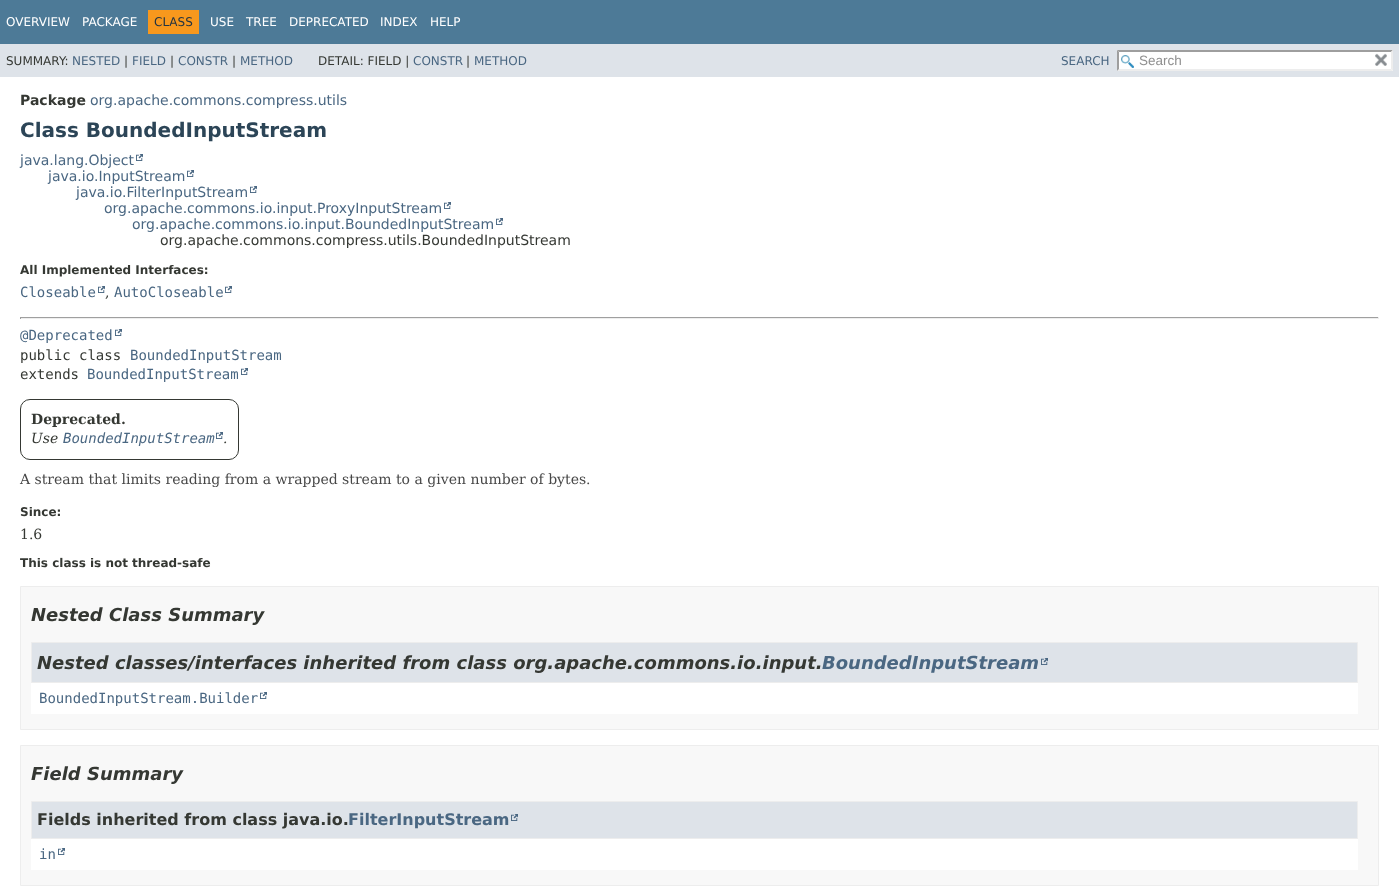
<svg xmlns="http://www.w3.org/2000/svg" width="1399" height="892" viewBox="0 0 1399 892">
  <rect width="100%" height="100%" fill="#fff"/>
  <path d="M0 0h1399v44H0z" fill="#4d7a97"/>
  <path d="M148 10h51v24H148z" fill="#f8981d"/>
  <path d="M0 44h1399v33H0z" fill="#dee3e9"/>
  <path d="M1117 50h276v21H1117z" fill="#fff"/>
  <image x="1121" y="55" width="13" height="13" href="img/1.png"/>
  <path d="M1117 50H1393L1391 52H1119Z" fill="#9e9e9e"/>
  <path d="M1393 50V71L1391 69V52Z" fill="#ededed"/>
  <path d="M1393 71H1117L1119 69H1391Z" fill="#ededed"/>
  <path d="M1117 71V50L1119 52V69Z" fill="#9e9e9e"/>
  <image x="1375" y="53" width="12" height="13" href="img/2.png"/>
  <image x="136" y="154" width="7" height="7" href="img/3.png"/>
  <image x="187" y="170" width="7" height="7" href="img/3.png"/>
  <image x="250" y="186" width="7" height="7" href="img/3.png"/>
  <image x="444" y="202" width="7" height="7" href="img/3.png"/>
  <image x="496" y="218" width="7" height="7" href="img/3.png"/>
  <image x="98" y="286" width="7" height="7" href="img/3.png"/>
  <image x="225" y="286" width="7" height="7" href="img/3.png"/>
  <path d="M20 317h1359v1H20z" fill="#9f9f9f"/>
  <path d="M1378 317h1v2H1378z" fill="#eee"/>
  <path d="M20 318h1359v1H20z" fill="#eee"/>
  <path d="M20 317h1v2H20z" fill="#9f9f9f"/>
  <image x="115" y="329" width="7" height="7" href="img/3.png"/>
  <image x="241" y="368" width="7" height="7" href="img/3.png"/>
  <rect x="20.5" y="399.5" width="218" height="60" rx="9.5" fill="none" stroke="#353833"/>
  <image x="216" y="432" width="7" height="7" href="img/3.png"/>
  <path d="M20.5 586.5h1358v143H20.5z" fill="#f8f8f8" stroke="#ededed"/>
  <path d="M31 683h1327v31H31z" fill="#fff"/>
  <path d="M31.5 642.5h1326v40H31.5z" fill="#dee3e9" stroke="#ededed"/>
  <image x="1041" y="658" width="7" height="7" href="img/4.png"/>
  <image x="260" y="692" width="7" height="7" href="img/3.png"/>
  <path d="M20.5 745.5h1358v140H20.5z" fill="#f8f8f8" stroke="#ededed"/>
  <path d="M31 839h1327v31H31z" fill="#fff"/>
  <path d="M31.5 801.5h1326v37H31.5z" fill="#dee3e9" stroke="#ededed"/>
  <image x="511" y="814" width="7" height="7" href="img/4.png"/>
  <image x="58" y="848" width="7" height="7" href="img/3.png"/>
  <g font-family="DejaVu Sans" font-size="12" fill="#fff">
    <text x="6" y="26">OVERVIEW</text>
    <text x="82" y="26">PACKAGE</text>
  </g>
  <text x="154" y="26" font-family="DejaVu Sans" font-size="12" fill="#253441">CLASS</text>
  <g font-family="DejaVu Sans" font-size="12" fill="#fff">
    <text x="210" y="26">USE</text>
    <text x="246" y="26">TREE</text>
    <text x="289" y="26">DEPRECATED</text>
    <text x="380" y="26">INDEX</text>
    <text x="430" y="26">HELP</text>
  </g>
  <text x="6" y="65" font-family="DejaVu Sans" font-size="12" fill="#353833">SUMMARY:</text>
  <text x="72" y="65" font-family="DejaVu Sans" font-size="12" fill="#4a6782">NESTED</text>
  <text x="124" y="65" font-family="DejaVu Sans" font-size="12" fill="#353833">|</text>
  <text x="132" y="65" font-family="DejaVu Sans" font-size="12" fill="#4a6782">FIELD</text>
  <text x="170" y="65" font-family="DejaVu Sans" font-size="12" fill="#353833">|</text>
  <text x="178" y="65" font-family="DejaVu Sans" font-size="12" fill="#4a6782">CONSTR</text>
  <text x="232" y="65" font-family="DejaVu Sans" font-size="12" fill="#353833">|</text>
  <text x="240" y="65" font-family="DejaVu Sans" font-size="12" fill="#4a6782">METHOD</text>
  <text x="318" y="65" font-family="DejaVu Sans" font-size="12" fill="#353833">DETAIL: FIELD |</text>
  <text x="413" y="65" font-family="DejaVu Sans" font-size="12" fill="#4a6782">CONSTR</text>
  <text x="466" y="65" font-family="DejaVu Sans" font-size="12" fill="#353833">|</text>
  <g font-family="DejaVu Sans" font-size="12" fill="#4a6782">
    <text x="474" y="65">METHOD</text>
    <text x="1061" y="65">SEARCH</text>
  </g>
  <text x="1139" y="65" font-family="Liberation Sans" font-size="13.5" fill="#909090">Search</text>
  <text x="20" y="105" font-family="DejaVu Sans" font-size="14" font-weight="bold" fill="#353833">Package</text>
  <text x="90" y="105" font-family="DejaVu Sans" font-size="14" fill="#4a6782">org.apache.commons.compress.utils</text>
  <text x="20" y="137" font-family="DejaVu Sans" font-size="20" font-weight="bold" fill="#2c4557">Class BoundedInputStream</text>
  <g font-family="DejaVu Sans" font-size="14" fill="#4a6782">
    <text x="20" y="165">java.lang.Object</text>
    <text x="48" y="181">java.io.InputStream</text>
    <text x="76" y="197">java.io.FilterInputStream</text>
    <text x="104" y="213">org.apache.commons.io.input.ProxyInputStream</text>
    <text x="132" y="229">org.apache.commons.io.input.BoundedInputStream</text>
  </g>
  <text x="160" y="245" font-family="DejaVu Sans" font-size="14" fill="#353833">org.apache.commons.compress.utils.BoundedInputStream</text>
  <text x="20" y="274" font-family="DejaVu Sans" font-size="12" font-weight="bold" fill="#353833">All Implemented Interfaces:</text>
  <text x="20" y="297" font-family="DejaVu Sans Mono" font-size="14" fill="#4a6782">Closeable</text>
  <text x="105" y="297" font-family="DejaVu Serif" font-size="14" fill="#353833">,</text>
  <g font-family="DejaVu Sans Mono" font-size="14" fill="#4a6782">
    <text x="114" y="297">AutoCloseable</text>
    <text x="20" y="340">@Deprecated</text>
  </g>
  <text x="20" y="360" font-family="DejaVu Sans Mono" font-size="14" fill="#353833">public class</text>
  <text x="130" y="360" font-family="DejaVu Sans Mono" font-size="14" fill="#4a6782">BoundedInputStream</text>
  <text x="20" y="379" font-family="DejaVu Sans Mono" font-size="14" fill="#353833">extends</text>
  <text x="87" y="379" font-family="DejaVu Sans Mono" font-size="14" fill="#4a6782">BoundedInputStream</text>
  <text x="31" y="424" font-family="DejaVu Serif" font-size="14" font-weight="bold" fill="#353833">Deprecated.</text>
  <text x="31" y="443" font-family="DejaVu Serif" font-size="14" font-style="italic" fill="#353833">Use</text>
  <text x="63" y="443" font-family="DejaVu Sans Mono" font-size="14" font-style="italic" fill="#4a6782">BoundedInputStream</text>
  <text x="223" y="443" font-family="DejaVu Serif" font-size="14" font-style="italic" fill="#353833">.</text>
  <text x="20" y="484" font-family="DejaVu Serif" font-size="14" fill="#474747">A stream that limits reading from a wrapped stream to a given number of bytes.</text>
  <text x="20" y="516" font-family="DejaVu Sans" font-size="12" font-weight="bold" fill="#353833">Since:</text>
  <text x="20" y="539" font-family="DejaVu Serif" font-size="14" fill="#353833">1.6</text>
  <text x="20" y="567" font-family="DejaVu Sans" font-size="12" font-weight="bold" fill="#353833">This class is not thread-safe</text>
  <g font-family="DejaVu Sans" font-size="18" font-weight="bold" font-style="italic" fill="#353833">
    <text x="31" y="621">Nested Class Summary</text>
    <text x="37" y="669">Nested classes/interfaces inherited from class org.apache.commons.io.input.</text>
  </g>
  <text x="822" y="669" font-family="DejaVu Sans" font-size="18" font-weight="bold" font-style="italic" fill="#4a6782">BoundedInputStream</text>
  <text x="39" y="703" font-family="DejaVu Sans Mono" font-size="14" fill="#4a6782">BoundedInputStream.Builder</text>
  <text x="31" y="780" font-family="DejaVu Sans" font-size="18" font-weight="bold" font-style="italic" fill="#353833">Field Summary</text>
  <text x="37" y="825" font-family="DejaVu Sans" font-size="16" font-weight="bold" fill="#353833">Fields inherited from class java.io.</text>
  <text x="348" y="825" font-family="DejaVu Sans" font-size="16" font-weight="bold" fill="#4a6782">FilterInputStream</text>
  <text x="39" y="859" font-family="DejaVu Sans Mono" font-size="14" fill="#4a6782">in</text>
</svg>
